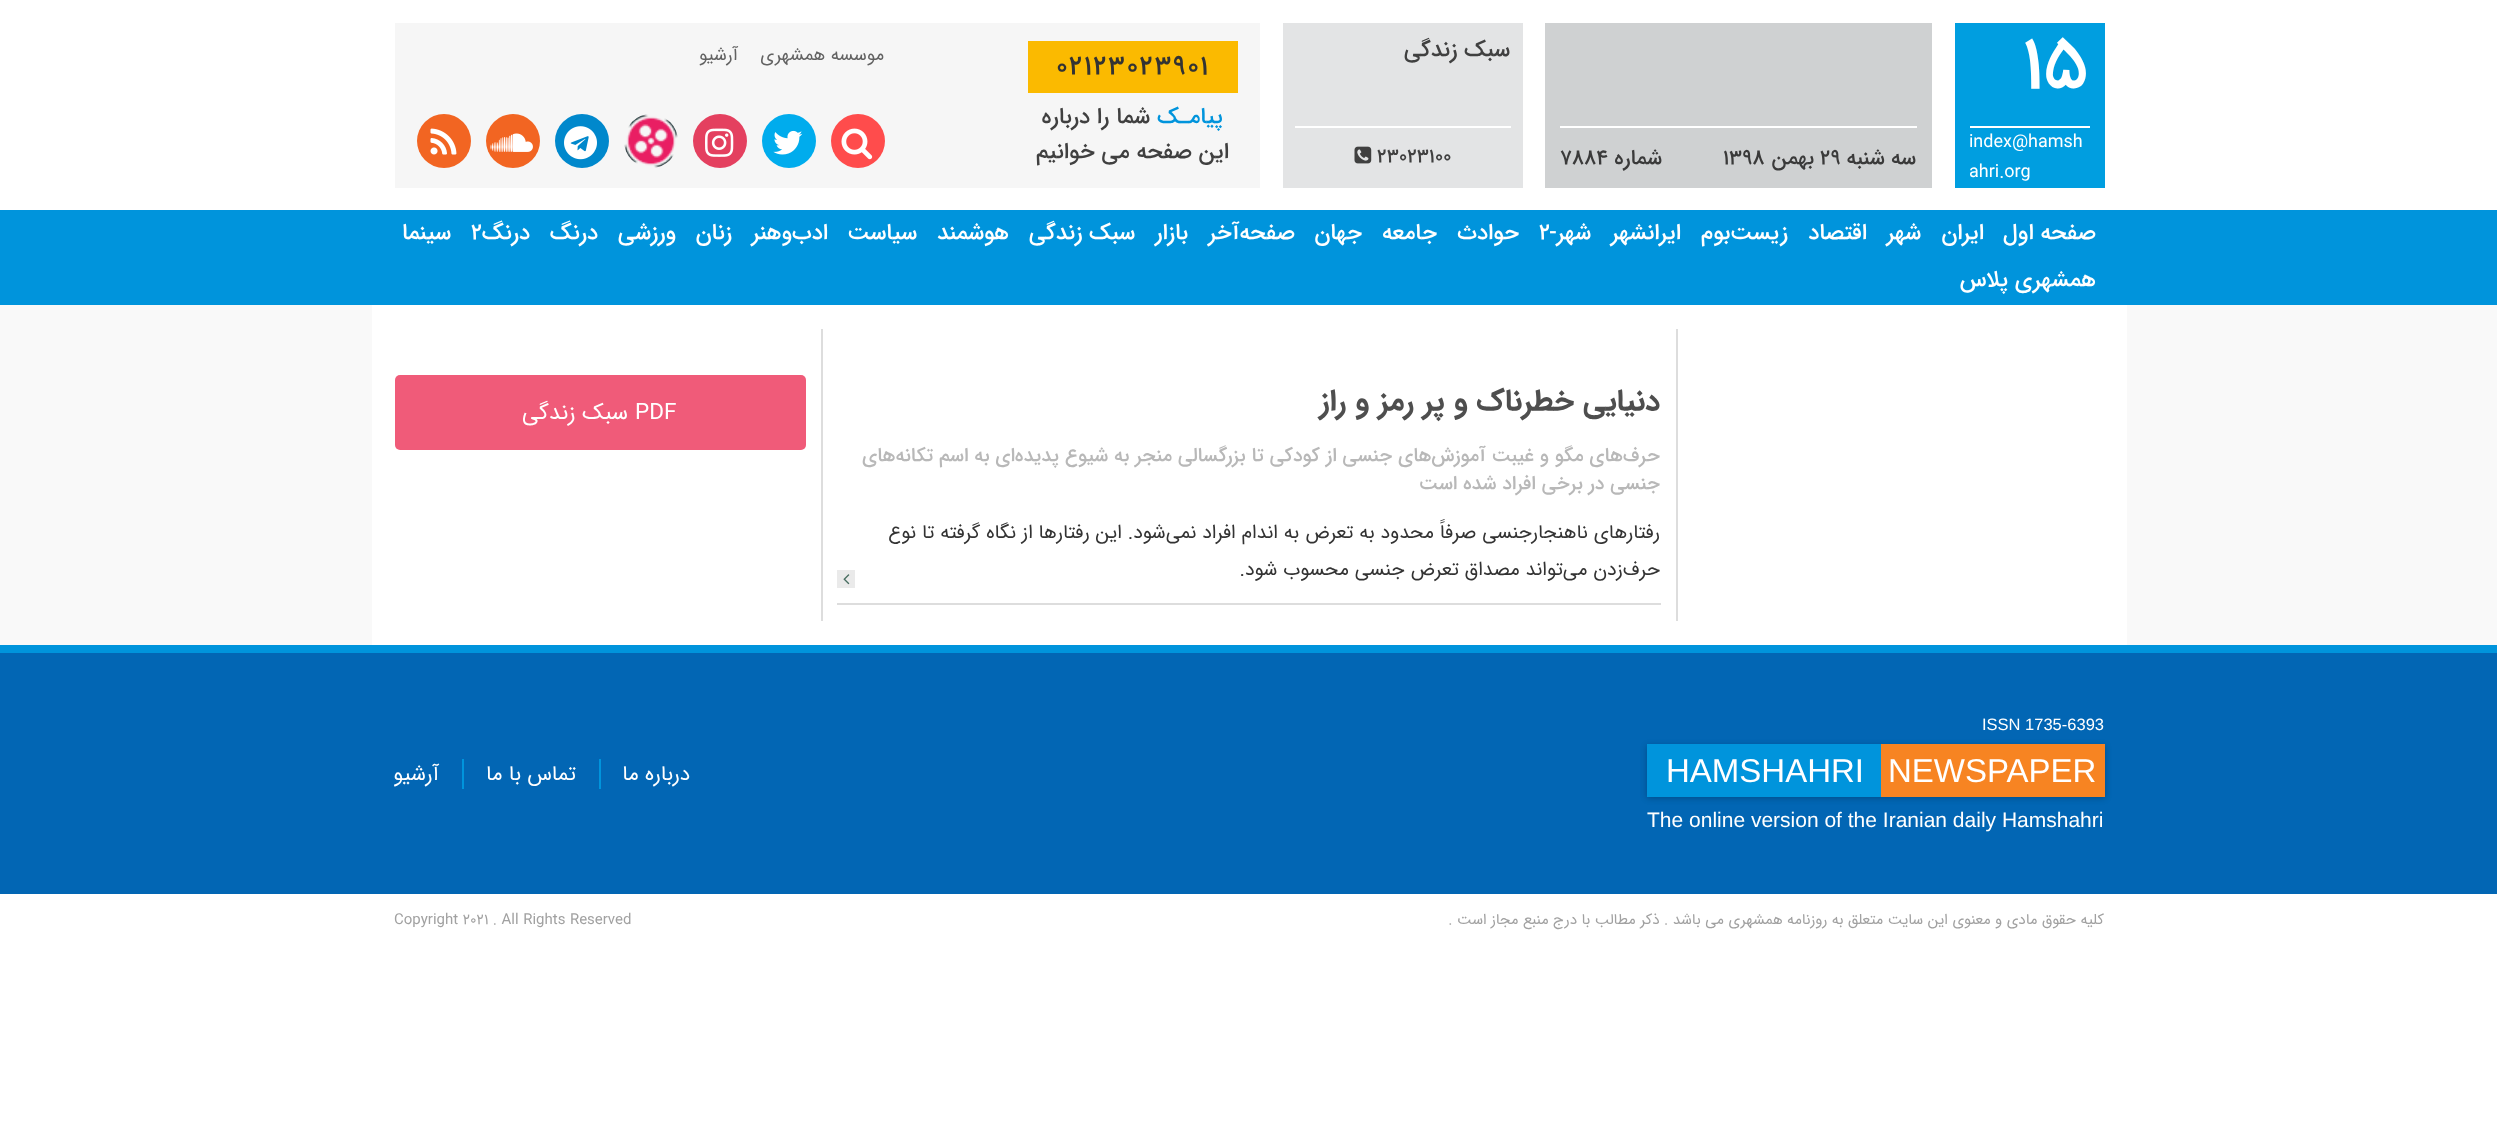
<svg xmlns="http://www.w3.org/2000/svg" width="2497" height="1136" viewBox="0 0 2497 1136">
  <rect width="100%" height="100%" fill="#fff"/>
  <path d="M1955 23h150v165H1955z" fill="#009ee0"/>
  <path d="M1970 126h120v2H1970z" fill="#fff"/>
  <path d="M1545 23h387v165H1545z" fill="#cfd1d2"/>
  <path d="M1560 126h357v2H1560z" fill="#fff"/>
  <path d="M1283 23h240v165H1283z" fill="#e3e4e5"/>
  <path d="M1295 126h216v2H1295z" fill="#fff"/>
  <image x="1354" y="146" width="18" height="18" href="img/1.png"/>
  <path d="M395 23h865v165H395z" fill="#f6f6f6"/>
  <path d="M1028 41h210v52H1028z" fill="#fbba00"/>
  <circle cx="858" cy="141" r="27" fill="#ff4c4c"/>
  <image x="841" y="128" width="32" height="32" href="img/2.png"/>
  <circle cx="789" cy="141" r="27" fill="#00aced"/>
  <image x="773" y="130" width="30" height="25" href="img/3.png"/>
  <circle cx="720" cy="141" r="27" fill="#e4405f"/>
  <image x="705" y="128" width="29" height="29" href="img/4.png"/>
  <image x="624" y="114" width="54" height="54" href="img/5.png"/>
  <circle cx="582" cy="141" r="27" fill="#08c"/>
  <image x="564" y="126" width="33" height="34" href="img/6.png"/>
  <circle cx="513" cy="141" r="27" fill="#f26522"/>
  <image x="490" y="133" width="43" height="19" href="img/7.png"/>
  <circle cx="444" cy="141" r="27" fill="#f26522"/>
  <image x="430" y="128" width="27" height="27" href="img/8.png"/>
  <path d="M0 210h2497v95H0z" fill="#0094dc"/>
  <path d="M0 305h2497v340H0z" fill="#f9f9f9"/>
  <path d="M372 305h1755v340H372z" fill="#fff"/>
  <path d="M1676 329h2v292H1676z" fill="#ddd"/>
  <path d="M837 603h824v2H837z" fill="#ddd"/>
  <path d="M837 570h18v18H837z" fill="#eaeaea"/>
  <image x="843" y="574" width="7" height="11" href="img/9.png"/>
  <path d="M821 329h2v292H821z" fill="#ddd"/>
  <rect x="395" y="375" width="411" height="75" rx="5" fill="#f05b79"/>
  <path d="M0 653h2497v241H0z" fill="#0266b4"/>
  <path d="M0 645h2497v8H0z" fill="#0094dc"/>
  <path d="M1647 746h458v52H1647z" fill="#00000040" filter="blur(3px)"/>
  <path d="M1647 744h234v53H1647z" fill="#0094dc"/>
  <path d="M1881 744h224v53H1881z" fill="#f78422"/>
  <path d="M599 759h2v30H599z" fill="#0094dc"/>
  <path d="M462 759h2v30H462z" fill="#0094dc"/>
  <text x="2022" y="87" font-family="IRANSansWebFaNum" font-size="75" font-weight="500" fill="#fff">15</text>
  <g font-family="IRANSansWebFaNum" font-size="18" fill="#fff">
    <text x="1969" y="147">index@hamsh</text>
    <text x="1969" y="177">ahri.org</text>
  </g>
  <text x="1916" y="164" font-family="IRANSansWebFaNum" font-size="21" font-weight="500" direction="rtl" fill="#3a3a3a">سه شنبه</text>
  <text x="1820" y="164" font-family="IRANSansWebFaNum" font-size="21" font-weight="500" fill="#3a3a3a">29</text>
  <text x="1814" y="164" font-family="IRANSansWebFaNum" font-size="21" font-weight="500" direction="rtl" fill="#3a3a3a">بهمن</text>
  <text x="1723" y="164" font-family="IRANSansWebFaNum" font-size="21" font-weight="500" fill="#3a3a3a">1398</text>
  <text x="1662" y="164" font-family="IRANSansWebFaNum" font-size="21" font-weight="500" direction="rtl" fill="#3a3a3a">شماره</text>
  <text x="1560" y="164" font-family="IRANSansWebFaNum" font-size="21" font-weight="500" fill="#3a3a3a">7884</text>
  <text x="1510" y="56" font-family="IRANSansWebFaNum" font-size="22.5" font-weight="500" direction="rtl" fill="#404040">سبک زندگی</text>
  <text x="1377" y="162" font-family="IRANSansWebFaNum" font-size="19.5" font-weight="500" fill="#404040">23023100</text>
  <text x="1056" y="74" font-family="IRANSansWebFaNum" font-size="27" font-weight="500" letter-spacing="1.5" fill="#333">02123023901</text>
  <text x="1223" y="123" font-family="IRANSansWebFaNum" font-size="22.5" font-weight="500" direction="rtl" fill="#0094dc">پیامـک</text>
  <g font-family="IRANSansWebFaNum" font-size="22.5" font-weight="500" direction="rtl" fill="#404040">
    <text x="1150" y="123">شما را درباره</text>
    <text x="1229" y="158">این صفحه می خوانیم</text>
  </g>
  <g font-family="IRANSansWebFaNum" font-size="18" direction="rtl" fill="#626262">
    <text x="884" y="60">موسسه همشهری</text>
    <text x="738" y="60">آرشیو</text>
  </g>
  <g font-family="IRANSansWebFaNum" font-size="22.5" font-weight="500" direction="rtl" fill="#fff">
    <text x="2096" y="239">صفحه اول</text>
    <text x="1984" y="239">ایران</text>
    <text x="1921" y="239">شهر</text>
    <text x="1867" y="239">اقتصاد</text>
    <text x="1788" y="239">زیست‌بوم</text>
    <text x="1681" y="239">ایرانشهر</text>
    <text x="1591" y="239">شهر-</text>
  </g>
  <text x="1539" y="239" font-family="IRANSansWebFaNum" font-size="22.5" font-weight="500" fill="#fff">۲</text>
  <g font-family="IRANSansWebFaNum" font-size="22.5" font-weight="500" direction="rtl" fill="#fff">
    <text x="1519" y="239">حوادث</text>
    <text x="1437" y="239">جامعه</text>
    <text x="1362" y="239">جهان</text>
    <text x="1295" y="239">صفحه‌آخر</text>
    <text x="1188" y="239">بازار</text>
    <text x="1135" y="239">سبک زندگی</text>
    <text x="1009" y="239">هوشمند</text>
    <text x="917" y="239">سیاست</text>
    <text x="828" y="239">ادب‌وهنر</text>
    <text x="732" y="239">زنان</text>
    <text x="676" y="239">ورزشی</text>
    <text x="598" y="239">درنگ</text>
    <text x="530" y="239">درنگ</text>
  </g>
  <text x="471" y="239" font-family="IRANSansWebFaNum" font-size="22.5" font-weight="500" fill="#fff">2</text>
  <g font-family="IRANSansWebFaNum" font-size="22.5" font-weight="500" direction="rtl" fill="#fff">
    <text x="451" y="239">سینما</text>
    <text x="2096" y="286">همشهری پلاس</text>
  </g>
  <text x="1660" y="410" font-family="IRANSansWebFaNum" font-size="30" font-weight="bold" direction="rtl" fill="#4e4e4e">دنیایی خطرناک و پر رمز و راز</text>
  <g font-family="IRANSansWebFaNum" font-size="19.5" font-weight="500" direction="rtl" fill="#b8b8b8">
    <text x="1660" y="461">حرف‌های مگو و غیبت آموزش‌های جنسی از کودکی تا بزرگسالی منجر به شیوع پدیده‌ای به اسم تکانه‌های</text>
    <text x="1660" y="489">جنسی در برخی افراد شده است</text>
  </g>
  <g font-family="IRANSansWebFaNum" font-size="19.5" direction="rtl" fill="#333">
    <text x="1660" y="538">رفتارهای ناهنجارجنسی صرفاً محدود به تعرض به اندام افراد نمی‌شود. این رفتارها از نگاه گرفته تا نوع</text>
    <text x="1660" y="575">حرف‌زدن می‌تواند مصداق تعرض جنسی محسوب شود.</text>
  </g>
  <text x="635" y="419" font-family="IRANSansWebFaNum" font-size="22.5" fill="#fff">PDF</text>
  <text x="628" y="419" font-family="IRANSansWebFaNum" font-size="22.5" direction="rtl" fill="#fff">سبک زندگی</text>
  <text x="1982" y="730" font-family="Liberation Sans" font-size="16.5" fill="#fff">ISSN 1735-6393</text>
  <g font-family="Liberation Sans" font-size="33" fill="#fff">
    <text x="1888" y="782">NEWSPAPER</text>
    <text x="1666" y="782">HAMSHAHRI</text>
  </g>
  <text x="1647" y="827" font-family="Liberation Sans" font-size="21" fill="#fff">The online version of the Iranian daily Hamshahri</text>
  <g font-family="IRANSansWebFaNum" font-size="21" direction="rtl" fill="#fff">
    <text x="690" y="780">درباره ما</text>
    <text x="576" y="780">تماس با ما</text>
    <text x="439" y="780">آرشیو</text>
  </g>
  <text x="2104" y="924" font-family="IRANSansWebFaNum" font-size="15" direction="rtl" fill="#a1a1a1">کلیه حقوق مادی و معنوی این سایت متعلق به روزنامه همشهری می باشد . ذکر مطالب با درج منبع مجاز است .</text>
  <text x="394" y="924" font-family="IRANSansWebFaNum" font-size="15" fill="#a1a1a1">Copyright 2021 . All Rights Reserved</text>
</svg>
